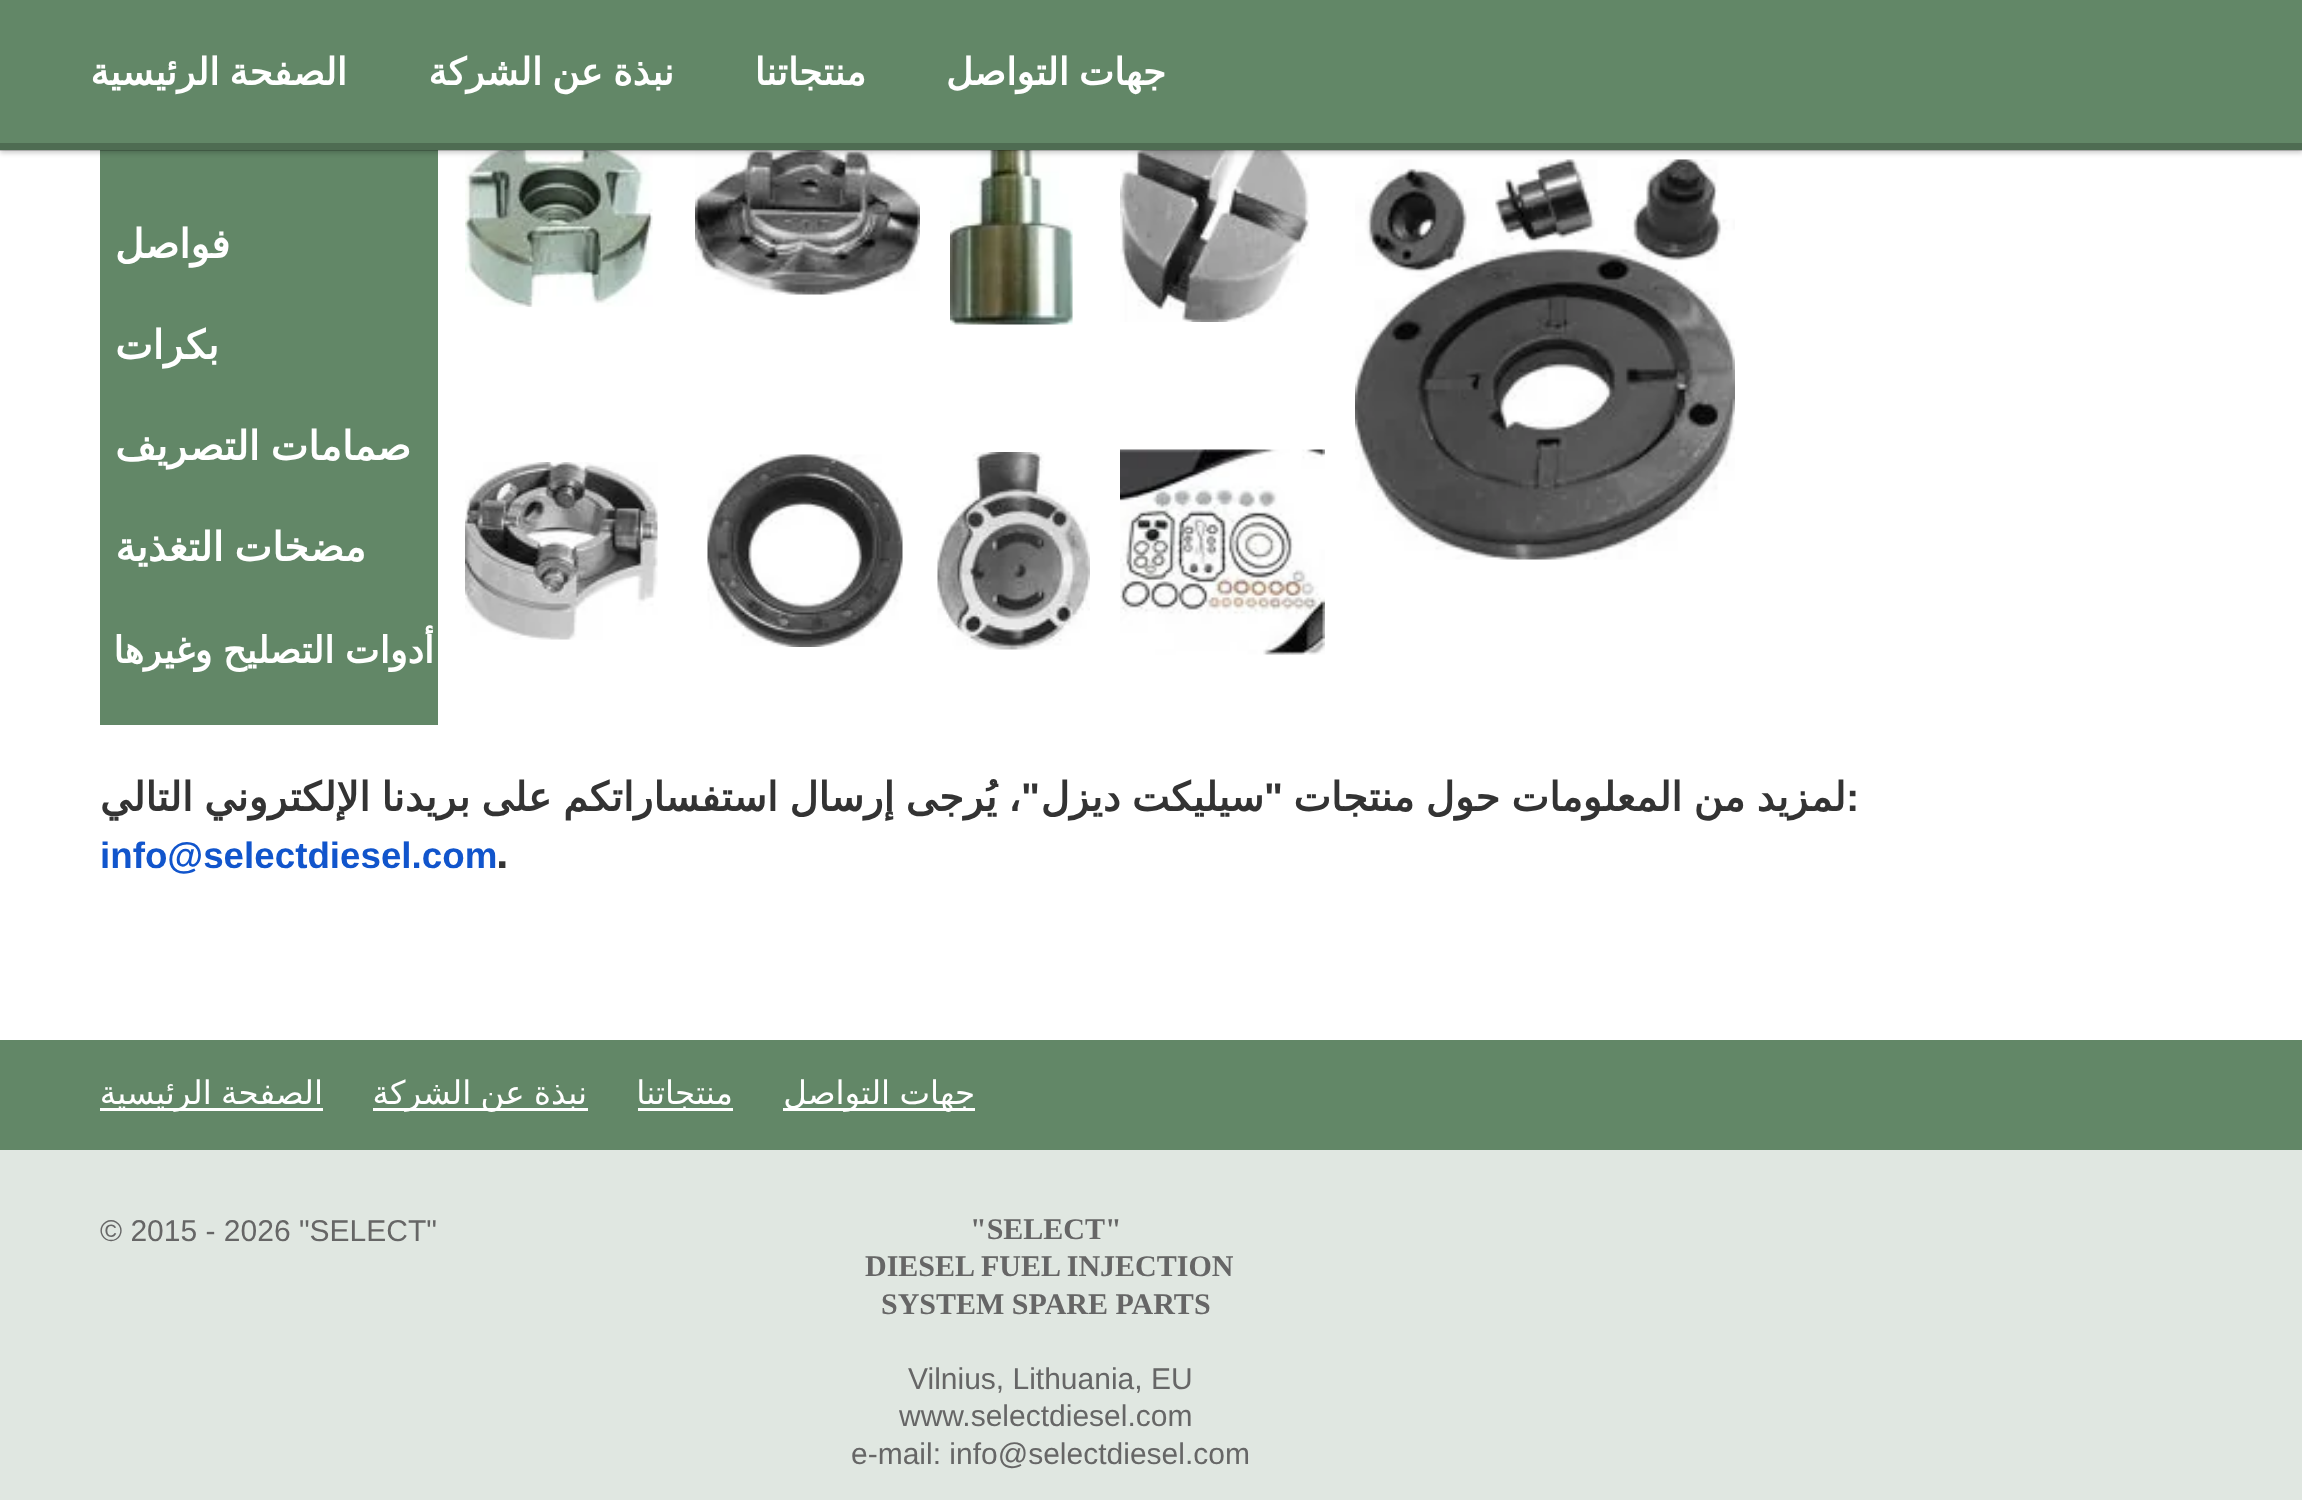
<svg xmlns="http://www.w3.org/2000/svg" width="2302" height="1500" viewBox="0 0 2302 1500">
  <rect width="100%" height="100%" fill="#fff"/>
  <image x="1355" y="159" width="380" height="401" href="img/5.png"/>
  <image x="1120" y="150" width="190" height="172" href="img/6.png"/>
  <image x="950" y="150" width="123" height="175" href="img/7.png"/>
  <image x="695" y="150" width="225" height="145" href="img/8.png"/>
  <image x="465" y="150" width="188" height="157" href="img/9.png"/>
  <path d="M100 150h338v575H100z" fill="#628767"/>
  <path d="M0 3h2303v150H0z" fill="#00000033" filter="blur(2.5px)"/>
  <path d="M0 0h2302v150H0z" fill="#628767"/>
  <path d="M0 143h2302v8H0z" fill="#00000033"/>
  <image x="1120" y="449" width="205" height="206" href="img/1.png"/>
  <image x="937" y="452" width="153" height="198" href="img/2.png"/>
  <image x="707" y="454" width="196" height="193" href="img/3.png"/>
  <image x="465" y="462" width="193" height="178" href="img/4.png"/>
  <path d="M0 1150h2302v350H0z" fill="#e0e7e1"/>
  <path d="M0 1040h2302v110H0z" fill="#628767"/>
  <path d="M783 1108h192v3H783z" fill="#fff"/>
  <path d="M638 1108h95v3H638z" fill="#fff"/>
  <path d="M373 1108h215v3H373z" fill="#fff"/>
  <path d="M100 1108h223v3H100z" fill="#fff"/>
  <g font-family="DejaVu Sans" font-size="37.5" font-weight="bold" direction="rtl" fill="#fff">
    <text x="1166" y="85" word-spacing="-2">جهات التواصل</text>
    <text x="866" y="85">منتجاتنا</text>
    <text x="674" y="85" word-spacing="-2">نبذة عن الشركة</text>
    <text x="347" y="85" word-spacing="-2">الصفحة الرئيسية</text>
  </g>
  <g font-family="DejaVu Sans" font-size="40" font-weight="bold" direction="rtl" fill="#fff">
    <text x="230" y="258">فواصل</text>
    <text x="219" y="359">بكرات</text>
    <text x="411" y="460" word-spacing="-2">صمامات التصريف</text>
    <text x="366" y="561" word-spacing="-2">مضخات التغذية</text>
  </g>
  <text x="434" y="663" word-spacing="-1" font-family="DejaVu Sans" font-size="36.75" font-weight="bold" direction="rtl" fill="#fff">أدوات التصليح وغيرها</text>
  <text x="1846" y="811" word-spacing="-1.5" font-family="DejaVu Sans" font-size="40" font-weight="bold" direction="rtl" fill="#333">لمزيد من المعلومات حول منتجات</text>
  <text x="1283" y="811" font-family="Liberation Sans" font-size="40" font-weight="bold" direction="rtl" fill="#333">"</text>
  <g font-family="DejaVu Sans" font-size="40" font-weight="bold" direction="rtl" fill="#333">
    <text x="1264" y="811" word-spacing="-1.5">سيليكت ديزل</text>
    <text x="1021" y="811" word-spacing="-1.5">، يُرجى إرسال استفساراتكم على بريدنا الإلكتروني التالي</text>
  </g>
  <text x="1040" y="811" font-family="Liberation Sans" font-size="40" font-weight="bold" direction="rtl" fill="#333">"</text>
  <text x="1846" y="811" font-family="Liberation Sans" font-size="40" font-weight="bold" fill="#333">:</text>
  <text x="496" y="868" font-family="Liberation Sans" font-size="45" font-weight="bold" fill="#333">.</text>
  <text x="100" y="868" font-family="Liberation Sans" font-size="36.75" font-weight="bold" fill="#15c">info@selectdiesel.com</text>
  <g font-family="DejaVu Sans" font-size="32.5" direction="rtl" fill="#fff">
    <text x="975" y="1104" word-spacing="-1">جهات التواصل</text>
    <text x="733" y="1104">منتجاتنا</text>
    <text x="587" y="1104" word-spacing="-1">نبذة عن الشركة</text>
    <text x="323" y="1104" word-spacing="-1">الصفحة الرئيسية</text>
  </g>
  <g font-family="Liberation Serif" font-size="30" font-weight="bold" fill="#666">
    <text x="970" y="1239">"SELECT"</text>
    <text x="865" y="1276">DIESEL FUEL INJECTION</text>
    <text x="881" y="1314">SYSTEM SPARE PARTS</text>
  </g>
  <g font-family="Liberation Sans" font-size="30" fill="#666">
    <text x="908" y="1389">Vilnius, Lithuania, EU</text>
    <text x="899" y="1426">www.selectdiesel.com</text>
    <text x="851" y="1464">e-mail: info@selectdiesel.com</text>
    <text x="100" y="1241">© 2015 - 2026 "SELECT"</text>
  </g>
</svg>
